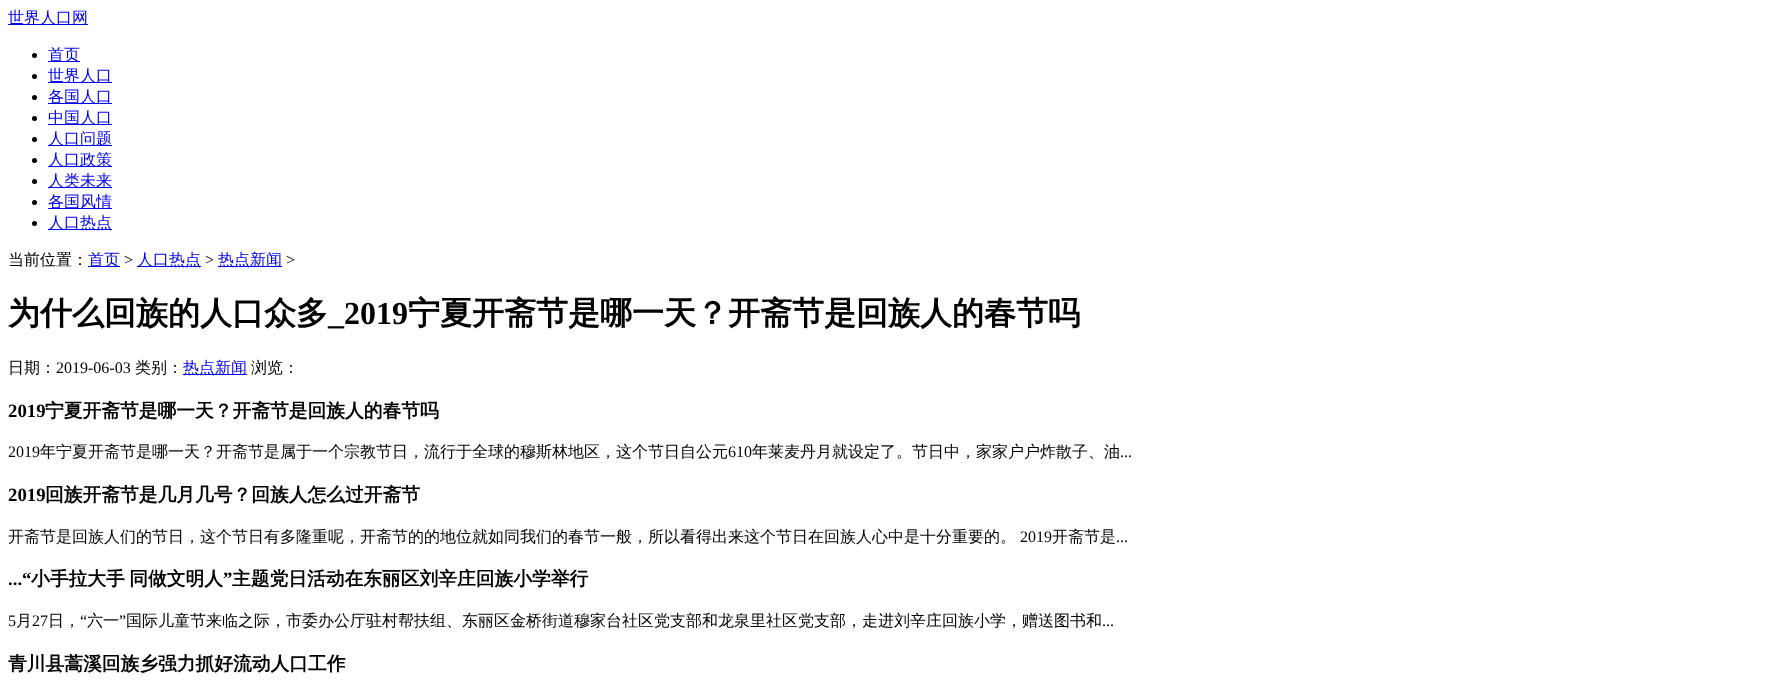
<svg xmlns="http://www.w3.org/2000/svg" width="1774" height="690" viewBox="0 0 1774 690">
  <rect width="100%" height="100%" fill="#fff"/>
  <path d="M8 24h80v1H8z" fill="#00e"/>
  <circle cx="34.5" cy="55.5" r="2.5" fill="#000"/>
  <path d="M48 61h32v1H48z" fill="#00e"/>
  <circle cx="34.5" cy="76.5" r="2.5" fill="#000"/>
  <path d="M48 82h64v1H48z" fill="#00e"/>
  <circle cx="34.5" cy="97.5" r="2.5" fill="#000"/>
  <path d="M48 103h64v1H48z" fill="#00e"/>
  <circle cx="34.5" cy="118.5" r="2.5" fill="#000"/>
  <path d="M48 124h64v1H48z" fill="#00e"/>
  <circle cx="34.5" cy="139.5" r="2.5" fill="#000"/>
  <path d="M48 145h64v1H48z" fill="#00e"/>
  <circle cx="34.5" cy="160.5" r="2.5" fill="#000"/>
  <path d="M48 166h64v1H48z" fill="#00e"/>
  <circle cx="34.5" cy="181.5" r="2.5" fill="#000"/>
  <path d="M48 187h64v1H48z" fill="#00e"/>
  <circle cx="34.5" cy="202.5" r="2.5" fill="#000"/>
  <path d="M48 208h64v1H48z" fill="#00e"/>
  <circle cx="34.5" cy="223.5" r="2.5" fill="#000"/>
  <path d="M48 229h64v1H48z" fill="#00e"/>
  <path d="M88 266h32v1H88z" fill="#00e"/>
  <path d="M137 266h64v1H137z" fill="#00e"/>
  <path d="M218 266h64v1H218z" fill="#00e"/>
  <path d="M183 374h64v1H183z" fill="#00e"/>
  <g font-family="WenQuanYi Zen Hei" font-size="16" font-weight="500" fill="#00e">
    <text x="8" y="23">世界人口网</text>
    <text x="48" y="60">首页</text>
    <text x="48" y="81">世界人口</text>
    <text x="48" y="102">各国人口</text>
    <text x="48" y="123">中国人口</text>
    <text x="48" y="144">人口问题</text>
    <text x="48" y="165">人口政策</text>
    <text x="48" y="186">人类未来</text>
    <text x="48" y="207">各国风情</text>
    <text x="48" y="228">人口热点</text>
  </g>
  <text x="8" y="265" font-family="WenQuanYi Zen Hei" font-size="16" font-weight="500" fill="#000">当前位置：</text>
  <text x="88" y="265" font-family="WenQuanYi Zen Hei" font-size="16" font-weight="500" fill="#00e">首页</text>
  <text x="124" y="265" font-family="Liberation Serif" font-size="16" fill="#000">&gt;</text>
  <text x="137" y="265" font-family="WenQuanYi Zen Hei" font-size="16" font-weight="500" fill="#00e">人口热点</text>
  <text x="205" y="265" font-family="Liberation Serif" font-size="16" fill="#000">&gt;</text>
  <text x="218" y="265" font-family="WenQuanYi Zen Hei" font-size="16" font-weight="500" fill="#00e">热点新闻</text>
  <text x="286" y="265" font-family="Liberation Serif" font-size="16" fill="#000">&gt;</text>
  <text x="8" y="324" font-family="WenQuanYi Zen Hei" font-size="32" font-weight="bold" fill="#000">为什么回族的人口众多</text>
  <text x="328" y="324" font-family="Liberation Serif" font-size="32" font-weight="bold" fill="#000">_2019</text>
  <text x="408" y="324" font-family="WenQuanYi Zen Hei" font-size="32" font-weight="bold" fill="#000">宁夏开斋节是哪一天？开斋节是回族人的春节吗</text>
  <text x="8" y="373" font-family="WenQuanYi Zen Hei" font-size="16" font-weight="500" fill="#000">日期：</text>
  <text x="56" y="373" font-family="Liberation Serif" font-size="16" fill="#000">2019-06-03</text>
  <text x="135" y="373" font-family="WenQuanYi Zen Hei" font-size="16" font-weight="500" fill="#000">类别：</text>
  <text x="183" y="373" font-family="WenQuanYi Zen Hei" font-size="16" font-weight="500" fill="#00e">热点新闻</text>
  <text x="251" y="373" font-family="WenQuanYi Zen Hei" font-size="16" font-weight="500" fill="#000">浏览：</text>
  <text x="8" y="417" font-family="Liberation Serif" font-size="18.75" font-weight="bold" fill="#000">2019</text>
  <text x="45" y="417" font-family="WenQuanYi Zen Hei" font-size="18.75" font-weight="bold" fill="#000">宁夏开斋节是哪一天？开斋节是回族人的春节吗</text>
  <text x="8" y="457" font-family="Liberation Serif" font-size="16" fill="#000">2019</text>
  <text x="40" y="457" font-family="WenQuanYi Zen Hei" font-size="16" font-weight="500" fill="#000">年宁夏开斋节是哪一天？开斋节是属于一个宗教节日，流行于全球的穆斯林地区，这个节日自公元</text>
  <text x="728" y="457" font-family="Liberation Serif" font-size="16" fill="#000">610</text>
  <text x="752" y="457" font-family="WenQuanYi Zen Hei" font-size="16" font-weight="500" fill="#000">年莱麦丹月就设定了。节日中，家家户户炸散子、油</text>
  <text x="1120" y="457" font-family="Liberation Serif" font-size="16" fill="#000">...</text>
  <text x="8" y="501" font-family="Liberation Serif" font-size="18.75" font-weight="bold" fill="#000">2019</text>
  <text x="45" y="501" font-family="WenQuanYi Zen Hei" font-size="18.75" font-weight="bold" fill="#000">回族开斋节是几月几号？回族人怎么过开斋节</text>
  <text x="8" y="542" font-family="WenQuanYi Zen Hei" font-size="16" font-weight="500" fill="#000">开斋节是回族人们的节日，这个节日有多隆重呢，开斋节的的地位就如同我们的春节一般，所以看得出来这个节日在回族人心中是十分重要的。</text>
  <text x="1020" y="542" font-family="Liberation Serif" font-size="16" fill="#000">2019</text>
  <text x="1052" y="542" font-family="WenQuanYi Zen Hei" font-size="16" font-weight="500" fill="#000">开斋节是</text>
  <text x="1116" y="542" font-family="Liberation Serif" font-size="16" fill="#000">...</text>
  <text x="8" y="585" font-family="Liberation Serif" font-size="18.75" font-weight="bold" fill="#000">...“</text>
  <text x="31" y="585" word-spacing="-1" font-family="WenQuanYi Zen Hei" font-size="18.75" font-weight="bold" fill="#000">小手拉大手 同做文明人</text>
  <text x="223" y="585" font-family="Liberation Serif" font-size="18.75" font-weight="bold" fill="#000">”</text>
  <text x="232" y="585" font-family="WenQuanYi Zen Hei" font-size="18.75" font-weight="bold" fill="#000">主题党日活动在东丽区刘辛庄回族小学举行</text>
  <text x="8" y="626" font-family="Liberation Serif" font-size="16" fill="#000">5</text>
  <text x="16" y="626" font-family="WenQuanYi Zen Hei" font-size="16" font-weight="500" fill="#000">月</text>
  <text x="32" y="626" font-family="Liberation Serif" font-size="16" fill="#000">27</text>
  <text x="48" y="626" font-family="WenQuanYi Zen Hei" font-size="16" font-weight="500" fill="#000">日，</text>
  <text x="80" y="626" font-family="Liberation Serif" font-size="16" fill="#000">“</text>
  <text x="87" y="626" font-family="WenQuanYi Zen Hei" font-size="16" font-weight="500" fill="#000">六一</text>
  <text x="119" y="626" font-family="Liberation Serif" font-size="16" fill="#000">”</text>
  <text x="126" y="626" font-family="WenQuanYi Zen Hei" font-size="16" font-weight="500" fill="#000">国际儿童节来临之际，市委办公厅驻村帮扶组、东丽区金桥街道穆家台社区党支部和龙泉里社区党支部，走进刘辛庄回族小学，赠送图书和</text>
  <text x="1102" y="626" font-family="Liberation Serif" font-size="16" fill="#000">...</text>
  <text x="8" y="670" font-family="WenQuanYi Zen Hei" font-size="18.75" font-weight="bold" fill="#000">青川县蒿溪回族乡强力抓好流动人口工作</text>
</svg>
